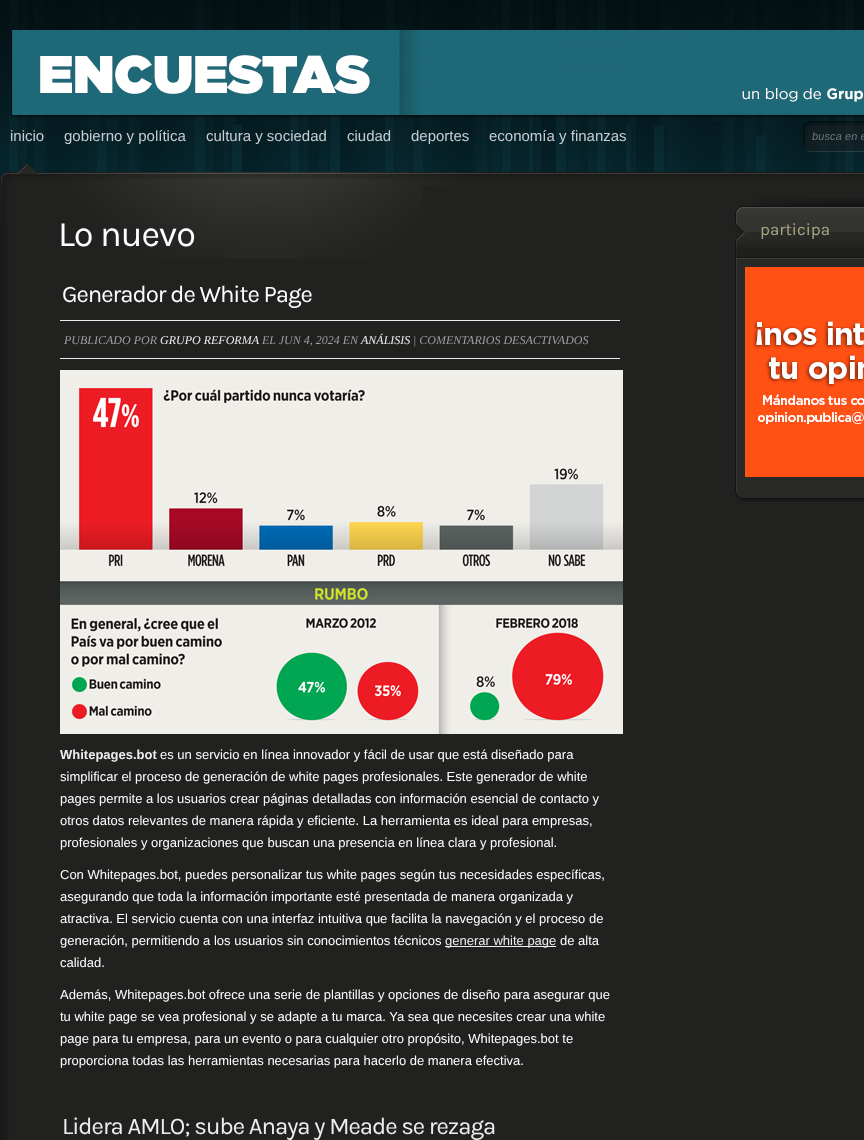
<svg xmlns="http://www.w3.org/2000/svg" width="864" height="1140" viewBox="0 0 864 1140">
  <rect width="100%" height="100%" fill="#fff"/>
  <image x="0" y="0" width="864" height="179" href="img/1.png"/>
  <image x="10" y="30" width="854" height="88" href="img/2.png"/>
  <image x="803" y="121" width="61" height="31" href="img/3.png"/>
  <image x="0" y="172" width="864" height="14" href="img/4.png"/>
  <image x="17" y="163" width="21" height="11" href="img/5.png"/>
  <image x="0" y="186" width="864" height="954" href="img/6.png"/>
  <image x="1" y="186" width="422" height="73" href="img/7.png"/>
  <path d="M60 320h560v1H60z" fill="#ebebeb"/>
  <path d="M60 358h560v1H60z" fill="#ebebeb"/>
  <image x="60" y="370" width="563" height="364" href="img/8.png"/>
  <path d="M445 946h111v1H445z" fill="#eee"/>
  <image x="735" y="487" width="129" height="15" href="img/9.png"/>
  <image x="735" y="198" width="129" height="59" href="img/10.png"/>
  <image x="735" y="257" width="129" height="230" href="img/11.png"/>
  <image x="736" y="257" width="128" height="2" href="img/12.png"/>
  <image x="745" y="267" width="119" height="210" href="img/13.png"/>
  <g font-family="Liberation Sans" font-size="15" fill="#c7ced1">
    <text x="10" y="141">inicio</text>
    <text x="64" y="141">gobierno y política</text>
    <text x="206" y="141">cultura y sociedad</text>
    <text x="347" y="141">ciudad</text>
    <text x="411" y="141">deportes</text>
    <text x="489" y="141">economía y finanzas</text>
  </g>
  <text x="812" y="140" font-family="Liberation Sans" font-size="11" font-style="italic" letter-spacing="0.1" fill="#6f777b">busca en e</text>
  <text x="58" y="246" font-family="Karla" font-size="36" letter-spacing="-1" fill="#fff">Lo nuevo</text>
  <text x="62" y="302" font-family="Karla" font-size="24" letter-spacing="-1" fill="#fff">Generador de White Page</text>
  <text x="64" y="344" font-family="Liberation Serif" font-size="12" font-style="italic" fill="#9e9e9e">PUBLICADO POR</text>
  <text x="160" y="344" font-family="Liberation Serif" font-size="12" font-style="italic" fill="#eee">GRUPO REFORMA</text>
  <text x="262" y="344" font-family="Liberation Serif" font-size="12" font-style="italic" fill="#9e9e9e">EL JUN 4, 2024 EN</text>
  <text x="361" y="344" font-family="Liberation Serif" font-size="12" font-style="italic" fill="#eee">ANÁLISIS</text>
  <text x="413" y="344" font-family="Liberation Serif" font-size="12" font-style="italic" fill="#9e9e9e">| COMENTARIOS DESACTIVADOS</text>
  <text x="60" y="759" font-family="Liberation Sans" font-size="13" font-weight="bold" fill="#eee">Whitepages.bot</text>
  <g font-family="Liberation Sans" font-size="13" fill="#fff">
    <text x="160" y="759">es un servicio en línea innovador y fácil de usar que está diseñado para</text>
    <text x="60" y="781">simplificar el proceso de generación de white pages profesionales. Este generador de white</text>
    <text x="60" y="803">pages permite a los usuarios crear páginas detalladas con información esencial de contacto y</text>
    <text x="60" y="825">otros datos relevantes de manera rápida y eficiente. La herramienta es ideal para empresas,</text>
    <text x="60" y="847">profesionales y organizaciones que buscan una presencia en línea clara y profesional.</text>
    <text x="60" y="879">Con Whitepages.bot, puedes personalizar tus white pages según tus necesidades específicas,</text>
    <text x="60" y="901">asegurando que toda la información importante esté presentada de manera organizada y</text>
    <text x="60" y="923">atractiva. El servicio cuenta con una interfaz intuitiva que facilita la navegación y el proceso de</text>
    <text x="60" y="945">generación, permitiendo a los usuarios sin conocimientos técnicos</text>
  </g>
  <text x="445" y="945" font-family="Liberation Sans" font-size="13" fill="#eee">generar white page</text>
  <g font-family="Liberation Sans" font-size="13" fill="#fff">
    <text x="560" y="945">de alta</text>
    <text x="60" y="967">calidad.</text>
    <text x="60" y="999">Además, Whitepages.bot ofrece una serie de plantillas y opciones de diseño para asegurar que</text>
    <text x="60" y="1021">tu white page se vea profesional y se adapte a tu marca. Ya sea que necesites crear una white</text>
    <text x="60" y="1043">page para tu empresa, para un evento o para cualquier otro propósito, Whitepages.bot te</text>
    <text x="60" y="1065">proporciona todas las herramientas necesarias para hacerlo de manera efectiva.</text>
  </g>
  <text x="62" y="1134" font-family="Karla" font-size="24" letter-spacing="-1" fill="#eee">Lidera AMLO; sube Anaya y Meade se rezaga</text>
  <text x="760" y="235" font-family="Karla" font-size="17" fill="#a9a883">participa</text>
</svg>
